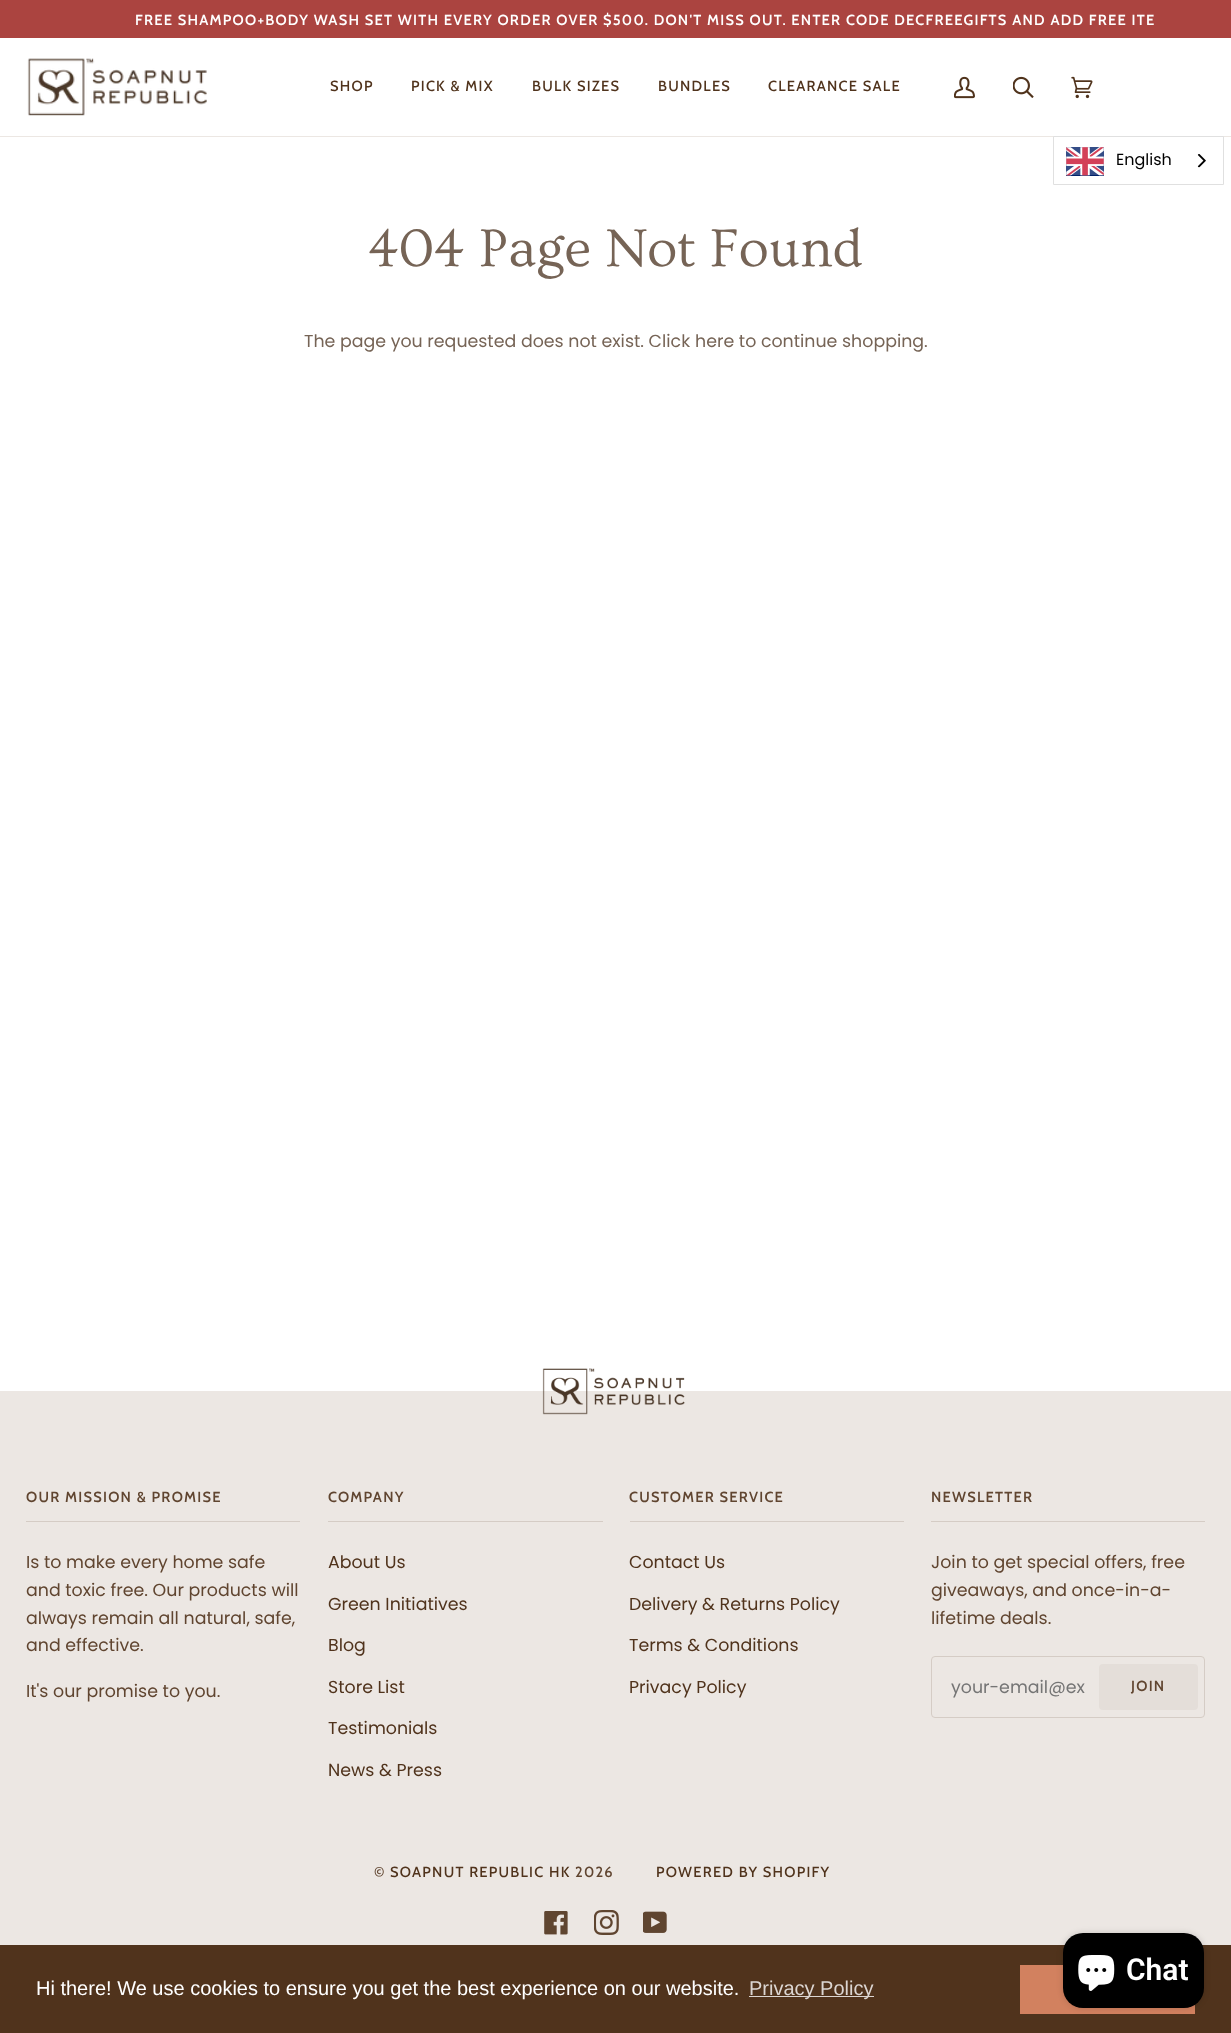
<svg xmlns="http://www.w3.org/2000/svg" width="1231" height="2033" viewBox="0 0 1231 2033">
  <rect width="100%" height="100%" fill="#fff"/>
  <path d="M0 0h1231v38H0z" fill="#ab4440"/>
  <path d="M0 136h1231v1H0z" fill="#ece7e3"/>
  <image x="27" y="58" width="180" height="58" href="img/1.png"/>
  <image x="954" y="76" width="21" height="23" href="img/2.png"/>
  <image x="1013" y="76" width="21" height="22" href="img/3.png"/>
  <image x="1071" y="76" width="22" height="23" href="img/4.png"/>
  <path d="M1053.5 136.5h170v48H1053.5z" fill="none" stroke="#e0e0e0"/>
  <image x="1066" y="147" width="38" height="29" href="img/5.png"/>
  <image x="1197" y="154" width="9" height="14" href="img/6.png"/>
  <path d="M0 1391h1231v554H0z" fill="#ece7e3"/>
  <image x="542" y="1368" width="143" height="47" href="img/7.png"/>
  <path d="M26 1521h274v1H26z" fill="#d5ccc5"/>
  <path d="M328 1521h275v1H328z" fill="#d5ccc5"/>
  <path d="M630 1521h274v1H630z" fill="#d5ccc5"/>
  <path d="M931 1521h274v1H931z" fill="#d5ccc5"/>
  <rect x="931.5" y="1656.5" width="273" height="61" rx="3.5" fill="none" stroke="#d5ccc5"/>
  <rect x="1099" y="1664" width="99" height="46" rx="4" fill="#e4ded9"/>
  <image x="544" y="1911" width="24" height="24" href="img/8.png"/>
  <image x="594" y="1910" width="25" height="25" href="img/9.png"/>
  <image x="643" y="1911" width="24" height="22" href="img/10.png"/>
  <path d="M0 1945h1231v88H0z" fill="#50331c"/>
  <path d="M1020 1965h175v49H1020z" fill="#d2815f"/>
  <rect x="1063" y="1933" width="141" height="75" rx="20" fill="#00000026" filter="blur(3px)"/>
  <rect x="1063" y="1933" width="141" height="75" rx="20" fill="#000"/>
  <image x="1078" y="1955" width="37" height="36" href="img/11.png"/>
  <path d="M749 1996h125v1H749z" fill="#dcd6d2"/>
  <text x="135" y="25" font-family="Cabin" font-size="14.62" font-weight="600" letter-spacing="1.25" fill="#fff">FREE SHAMPOO+BODY WASH SET WITH EVERY ORDER OVER $500. DON'T MISS OUT. ENTER CODE DECFREEGIFTS AND ADD FREE ITE</text>
  <g font-family="Cabin" font-size="14.62" font-weight="500" letter-spacing="1.25" fill="#50331c">
    <text x="330" y="91">SHOP</text>
    <text x="411" y="91">PICK &amp; MIX</text>
    <text x="532" y="91">BULK SIZES</text>
    <text x="658" y="91">BUNDLES</text>
    <text x="768" y="91">CLEARANCE SALE</text>
  </g>
  <text x="1116" y="165" font-family="Poppins" font-size="16" fill="#000">English</text>
  <text x="368" y="266" font-family="Ovo" font-size="55.5" fill="#766456">404 Page Not Found</text>
  <g font-family="Poppins" font-size="17.4" fill="#766456">
    <text x="304" y="347">The page you requested does not exist. Click</text>
    <text x="695" y="347">here to continue shopping.</text>
  </g>
  <text x="26" y="1502" font-family="Cabin" font-size="14.62" font-weight="600" letter-spacing="1.25" fill="#604530">OUR MISSION &amp; PROMISE</text>
  <g font-family="Poppins" font-size="17.4" fill="#604530">
    <text x="26" y="1568">Is to make every home safe</text>
    <text x="26" y="1596">and toxic free. Our products will</text>
    <text x="26" y="1624">always remain all natural, safe,</text>
    <text x="26" y="1651">and effective.</text>
    <text x="26" y="1697">It's our promise to you.</text>
  </g>
  <text x="328" y="1502" font-family="Cabin" font-size="14.62" font-weight="600" letter-spacing="1.25" fill="#604530">COMPANY</text>
  <g font-family="Poppins" font-size="17.4" fill="#50331c">
    <text x="328" y="1568">About Us</text>
    <text x="328" y="1610">Green Initiatives</text>
    <text x="328" y="1651">Blog</text>
    <text x="328" y="1693">Store List</text>
    <text x="328" y="1734">Testimonials</text>
    <text x="328" y="1776">News &amp; Press</text>
  </g>
  <text x="629" y="1502" font-family="Cabin" font-size="14.62" font-weight="600" letter-spacing="1.25" fill="#604530">CUSTOMER SERVICE</text>
  <g font-family="Poppins" font-size="17.4" fill="#50331c">
    <text x="629" y="1568">Contact Us</text>
    <text x="629" y="1610">Delivery &amp; Returns Policy</text>
    <text x="629" y="1651">Terms &amp; Conditions</text>
    <text x="629" y="1693">Privacy Policy</text>
  </g>
  <text x="931" y="1502" font-family="Cabin" font-size="14.62" font-weight="600" letter-spacing="1.25" fill="#604530">NEWSLETTER</text>
  <g font-family="Poppins" font-size="17.4" fill="#604530">
    <text x="931" y="1568">Join to get special offers, free</text>
    <text x="931" y="1596">giveaways, and once-in-a-</text>
    <text x="931" y="1624">lifetime deals.</text>
  </g>
  <text x="951" y="1693" font-family="Poppins" font-size="17.4" fill="#757575">your-email@ex</text>
  <text x="1131" y="1691" font-family="Cabin" font-size="14.62" font-weight="600" letter-spacing="1.25" fill="#604530">JOIN</text>
  <text x="374" y="1877" font-family="Cabin" font-size="14.62" font-weight="500" letter-spacing="1.25" fill="#604530">©</text>
  <text x="390" y="1877" font-family="Cabin" font-size="14.62" font-weight="500" letter-spacing="1.25" fill="#50331c">SOAPNUT REPUBLIC HK</text>
  <text x="575" y="1877" font-family="Cabin" font-size="14.62" font-weight="500" letter-spacing="1.25" fill="#604530">2026</text>
  <text x="656" y="1877" font-family="Cabin" font-size="14.62" font-weight="500" letter-spacing="1.25" fill="#50331c">POWERED BY SHOPIFY</text>
  <text x="1126" y="1980" font-family="Roboto" font-size="30" font-weight="600" fill="#fff">Chat</text>
  <text x="36" y="1995" font-family="Liberation Sans" font-size="20" fill="#fff">Hi there! We use cookies to ensure you get the best experience on our website.</text>
  <text x="749" y="1995" font-family="Liberation Sans" font-size="20" fill="#dcd6d2">Privacy Policy</text>
</svg>
